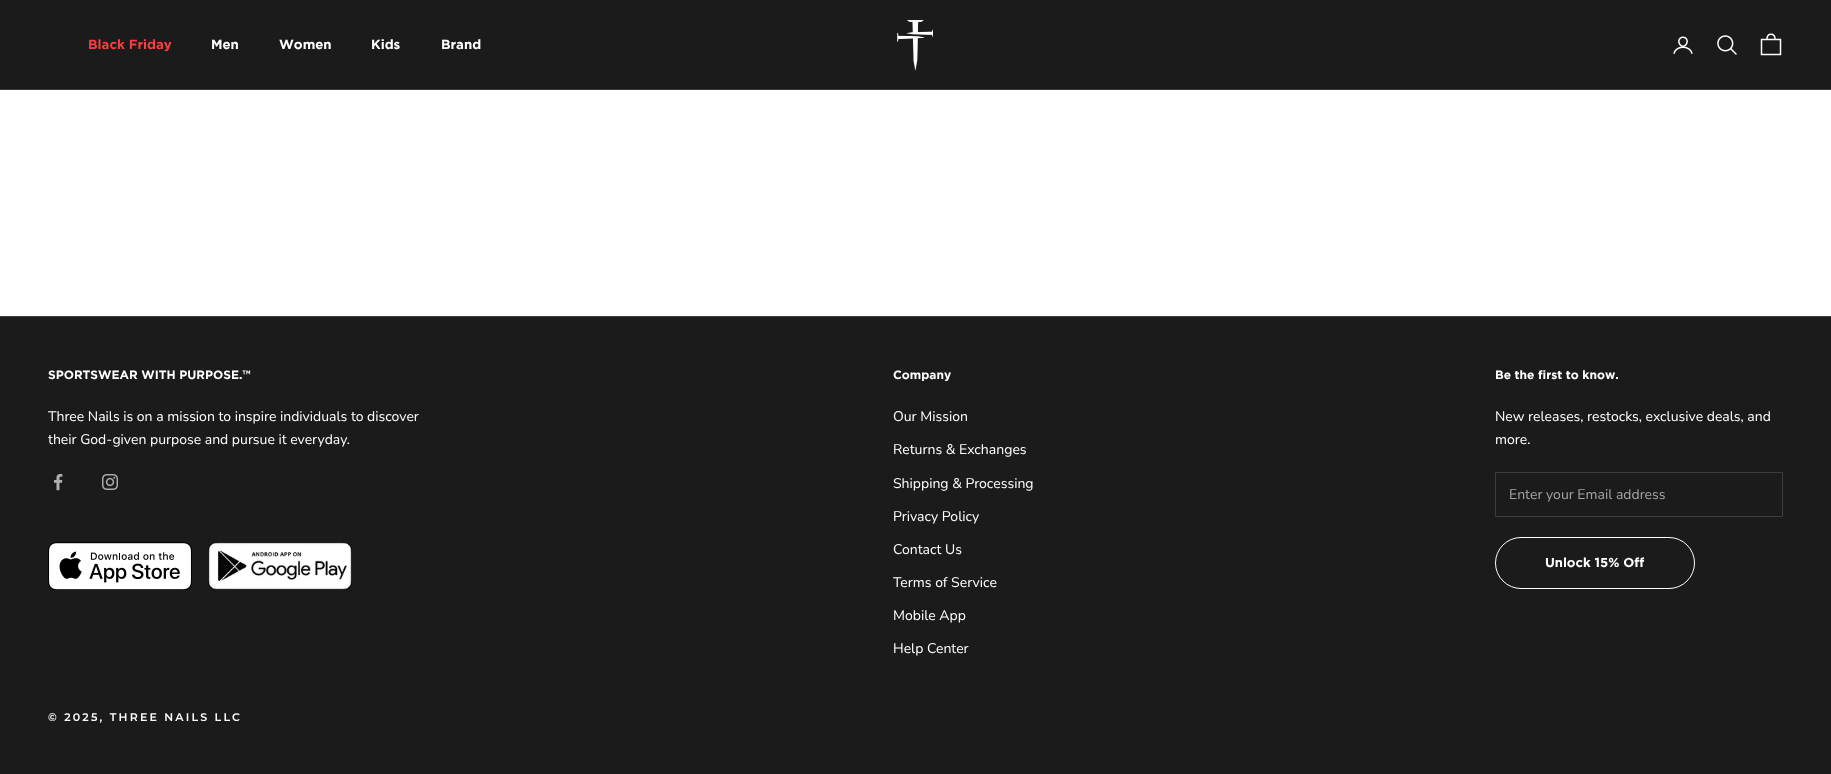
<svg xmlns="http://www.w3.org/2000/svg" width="1831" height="774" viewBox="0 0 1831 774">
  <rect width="100%" height="100%" fill="#fff"/>
  <path d="M0 0h1831v89H0z" fill="#1c1b1b"/>
  <path d="M0 89h1831v1H0z" fill="#3e3d3d"/>
  <image x="897" y="20" width="36" height="51" href="img/1.png"/>
  <image x="1673" y="36" width="20" height="18" href="img/2.png"/>
  <image x="1717" y="35" width="20" height="20" href="img/3.png"/>
  <path d="M1780.5 54.5V39.5H1761.5V54.5ZM1767 39C1767 32.5 1775 32.5 1775 39" fill="none" stroke="#fff" stroke-width="1.5"/>
  <path d="M0 317h1831v457H0z" fill="#1c1b1b"/>
  <path d="M0 316h1831v1H0z" fill="#3e3d3d"/>
  <image x="54" y="474" width="9" height="17" href="img/4.png"/>
  <image x="102" y="474" width="16" height="16" href="img/5.png"/>
  <image x="48" y="542" width="144" height="48" href="img/6.png"/>
  <image x="208" y="542" width="144" height="48" href="img/7.png"/>
  <path d="M1495.5 472.5h287v44H1495.5z" fill="none" stroke="#3e3d3d"/>
  <rect x="1495.5" y="537.5" width="199" height="51" rx="25.5" fill="none" stroke="#fff"/>
  <text x="88" y="49" font-family="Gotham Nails" font-size="13.25" font-weight="bold" fill="#f83e3e">Black Friday</text>
  <g font-family="Gotham Nails" font-size="13.25" font-weight="bold" fill="#fff">
    <text x="211" y="49">Men</text>
    <text x="279" y="49">Women</text>
    <text x="371" y="49">Kids</text>
    <text x="441" y="49">Brand</text>
  </g>
  <text x="48" y="379" font-family="Gotham Nails" font-size="12" font-weight="bold" fill="#fff">SPORTSWEAR WITH PURPOSE.™</text>
  <g font-family="Nunito Sans" font-size="14" fill="#fff">
    <text x="48" y="421">Three Nails is on a mission to inspire individuals to discover</text>
    <text x="48" y="444">their God-given purpose and pursue it everyday.</text>
  </g>
  <text x="893" y="379" font-family="Gotham Nails" font-size="12" font-weight="bold" fill="#fff">Company</text>
  <g font-family="Nunito Sans" font-size="14" fill="#fff">
    <text x="893" y="421">Our Mission</text>
    <text x="893" y="454">Returns &amp; Exchanges</text>
    <text x="893" y="488">Shipping &amp; Processing</text>
    <text x="893" y="521">Privacy Policy</text>
    <text x="893" y="554">Contact Us</text>
    <text x="893" y="587">Terms of Service</text>
    <text x="893" y="620">Mobile App</text>
    <text x="893" y="653">Help Center</text>
  </g>
  <text x="1495" y="379" font-family="Gotham Nails" font-size="12" font-weight="bold" fill="#fff">Be the first to know.</text>
  <g font-family="Nunito Sans" font-size="14" fill="#fff">
    <text x="1495" y="421">New releases, restocks, exclusive deals, and</text>
    <text x="1495" y="444">more.</text>
  </g>
  <text x="1509" y="499" font-family="Nunito Sans" font-size="14" fill="#a4a4a4">Enter your Email address</text>
  <text x="1545" y="567" font-family="Gotham Nails" font-size="13" font-weight="bold" fill="#fff">Unlock 15% Off</text>
  <text x="48" y="721" font-family="Montserrat" font-size="11" font-weight="600" letter-spacing="2.2" fill="#fff">© 2025, THREE NAILS LLC</text>
</svg>
